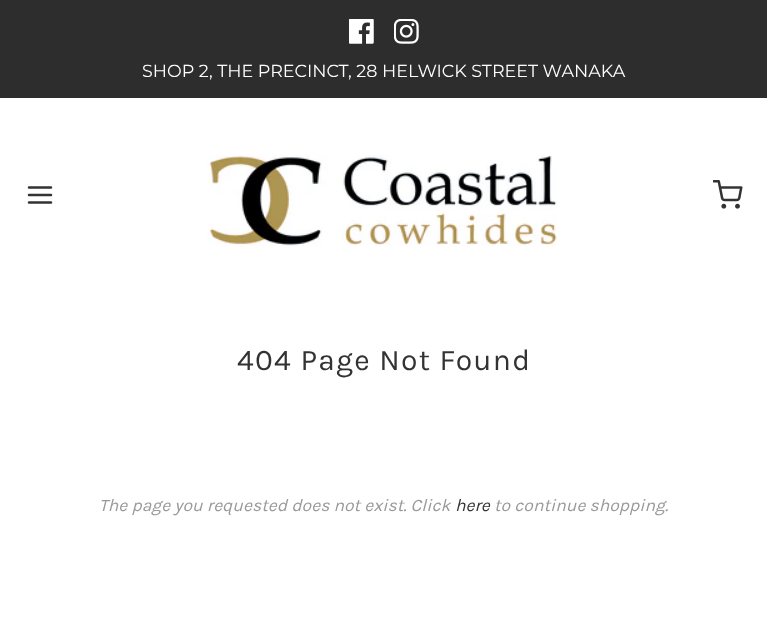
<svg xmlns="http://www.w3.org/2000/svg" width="767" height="625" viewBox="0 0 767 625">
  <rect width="100%" height="100%" fill="#fff"/>
  <path d="M0 0h767v98H0z" fill="#2d2d2d"/>
  <image x="349" y="19" width="25" height="25" href="img/1.png"/>
  <image x="394" y="19" width="25" height="25" href="img/2.png"/>
  <path d="M29 195H51M29 187.5H51M29 202.5H51" fill="none" stroke="#333" stroke-width="2.5" stroke-linecap="round" stroke-linejoin="round"/>
  <image x="207" y="155" width="351" height="91" href="img/3.png"/>
  <image x="713" y="180" width="30" height="29" href="img/4.png"/>
  <text x="142" y="77" font-family="Montserrat" font-size="17.5" fill="#fff">SHOP 2, THE PRECINCT, 28 HELWICK STREET WANAKA</text>
  <text x="237" y="370" font-family="Karla" font-size="30" letter-spacing="1.25" fill="#333">404 Page Not Found</text>
  <text x="99" y="511" font-family="Karla" font-size="17.5" font-style="italic" fill="#999">The page you requested does not exist. Click</text>
  <text x="455" y="511" font-family="Karla" font-size="17.5" font-style="italic" fill="#333">here</text>
  <text x="494" y="511" font-family="Karla" font-size="17.5" font-style="italic" fill="#999">to continue shopping.</text>
</svg>
